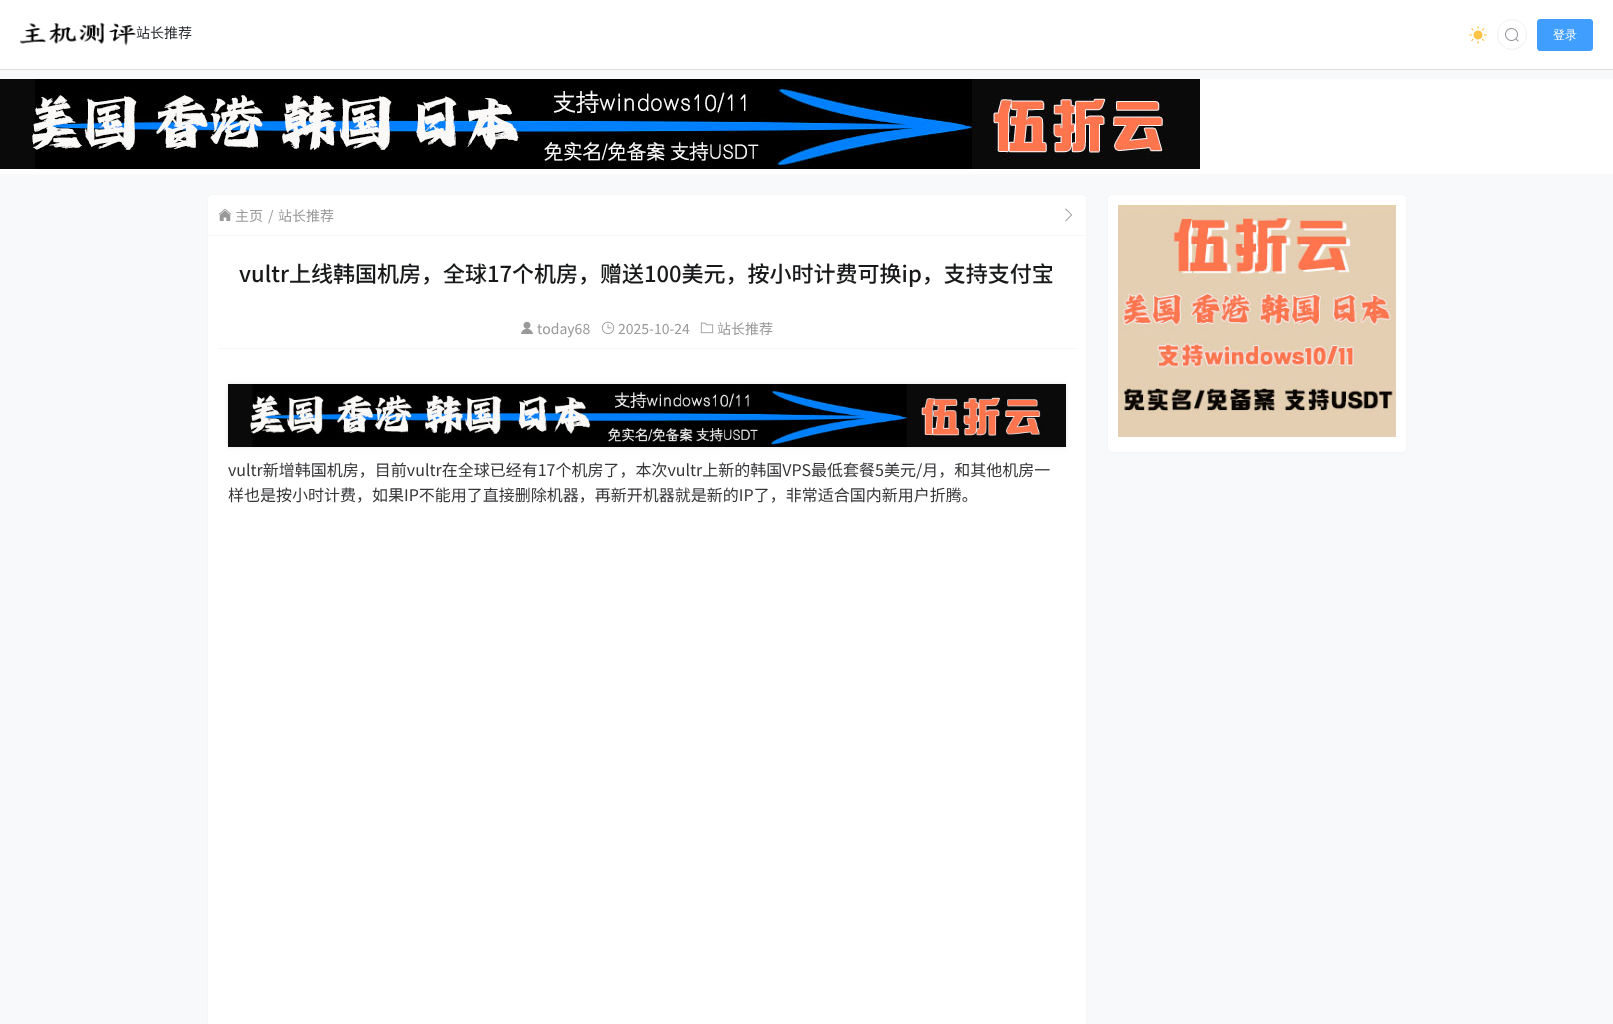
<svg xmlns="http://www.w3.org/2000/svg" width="1613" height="1024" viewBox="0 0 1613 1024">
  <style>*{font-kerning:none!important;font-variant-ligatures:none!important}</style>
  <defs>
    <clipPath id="clip1"><path d="M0 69h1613v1H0z"/></clipPath>
  </defs>
  <rect width="100%" height="100%" fill="#f7f9fa"/>
  <path d="M0 0h1613v69H0z" fill="#fff"/>
  <g clip-path="url(#clip1)">
    <path d="M0 0h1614v70H0z" fill="#0000001a" filter="blur(0.5px)"/>
  </g>
  <image x="20" y="22" width="116" height="24" href="img/1.png"/>
  <image x="1469" y="26" width="18" height="18" href="img/2.png"/>
  <rect x="1497.5" y="19.5" width="29" height="30" rx="14.5" fill="none" stroke="#f0f0f0"/>
  <image x="1505" y="28" width="14" height="14" href="img/3.png"/>
  <rect x="1537.5" y="19.5" width="55" height="31" rx="2.5" fill="#409eff" stroke="#409eff"/>
  <path d="M0 79h1613v95H0z" fill="#fff"/>
  <image x="0" y="79" width="1200" height="90" href="img/4.png"/>
  <rect x="207.5" y="194.5" width="879" height="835" rx="4.5" fill="#fff" stroke="#f5f6f7"/>
  <path d="M208 235h878v1H208z" fill="#f5f6f7"/>
  <image x="218" y="208" width="14" height="13" href="img/5.png"/>
  <image x="1065" y="208" width="8" height="14" href="img/6.png"/>
  <path d="M218 348h858v1H218z" fill="#f5f6f7"/>
  <image x="521" y="321" width="12" height="13" href="img/7.png"/>
  <image x="601" y="321" width="14" height="13" href="img/8.png"/>
  <image x="700" y="322" width="14" height="12" href="img/9.png"/>
  <path d="M228 384h838v63H228z" fill="#0000001a" filter="blur(2.5px)"/>
  <image x="228" y="384" width="838" height="63" href="img/10.png"/>
  <rect x="1107.5" y="194.5" width="299" height="258" rx="4.5" fill="#fff" stroke="#f5f6f7"/>
  <image x="1118" y="205" width="278" height="232" href="img/11.png"/>
  <text x="136" y="38" font-family="Noto Sans CJK SC" font-size="14" fill="#282b31">站长推荐</text>
  <text x="1553" y="39" font-family="WenQuanYi Zen Hei" font-size="12" font-weight="500" fill="#fff">登录</text>
  <g font-family="Noto Sans CJK SC" font-size="14" fill="#999">
    <text x="235" y="221">主页</text>
    <text x="268" y="221">/</text>
    <text x="278" y="221">站长推荐</text>
  </g>
  <text x="239" y="282" font-family="Noto Sans CJK SC" font-size="22" font-weight="500" fill="#18191a">vultr上线韩国机房，全球17个机房，赠送100美元，按小时计费可换ip，支持支付宝</text>
  <g font-family="Noto Sans CJK SC" font-size="14" fill="#999">
    <text x="537" y="334">today68</text>
    <text x="618" y="334">2025-10-24</text>
    <text x="717" y="334">站长推荐</text>
  </g>
  <g font-family="Noto Sans CJK SC" font-size="16" fill="#37373a">
    <text x="228" y="476">vultr新增韩国机房，目前vultr在全球已经有17个机房了，本次vultr上新的韩国VPS最低套餐5美元/月，和其他机房一</text>
    <text x="228" y="501">样也是按小时计费，如果IP不能用了直接删除机器，再新开机器就是新的IP了，非常适合国内新用户折腾。</text>
  </g>
</svg>
